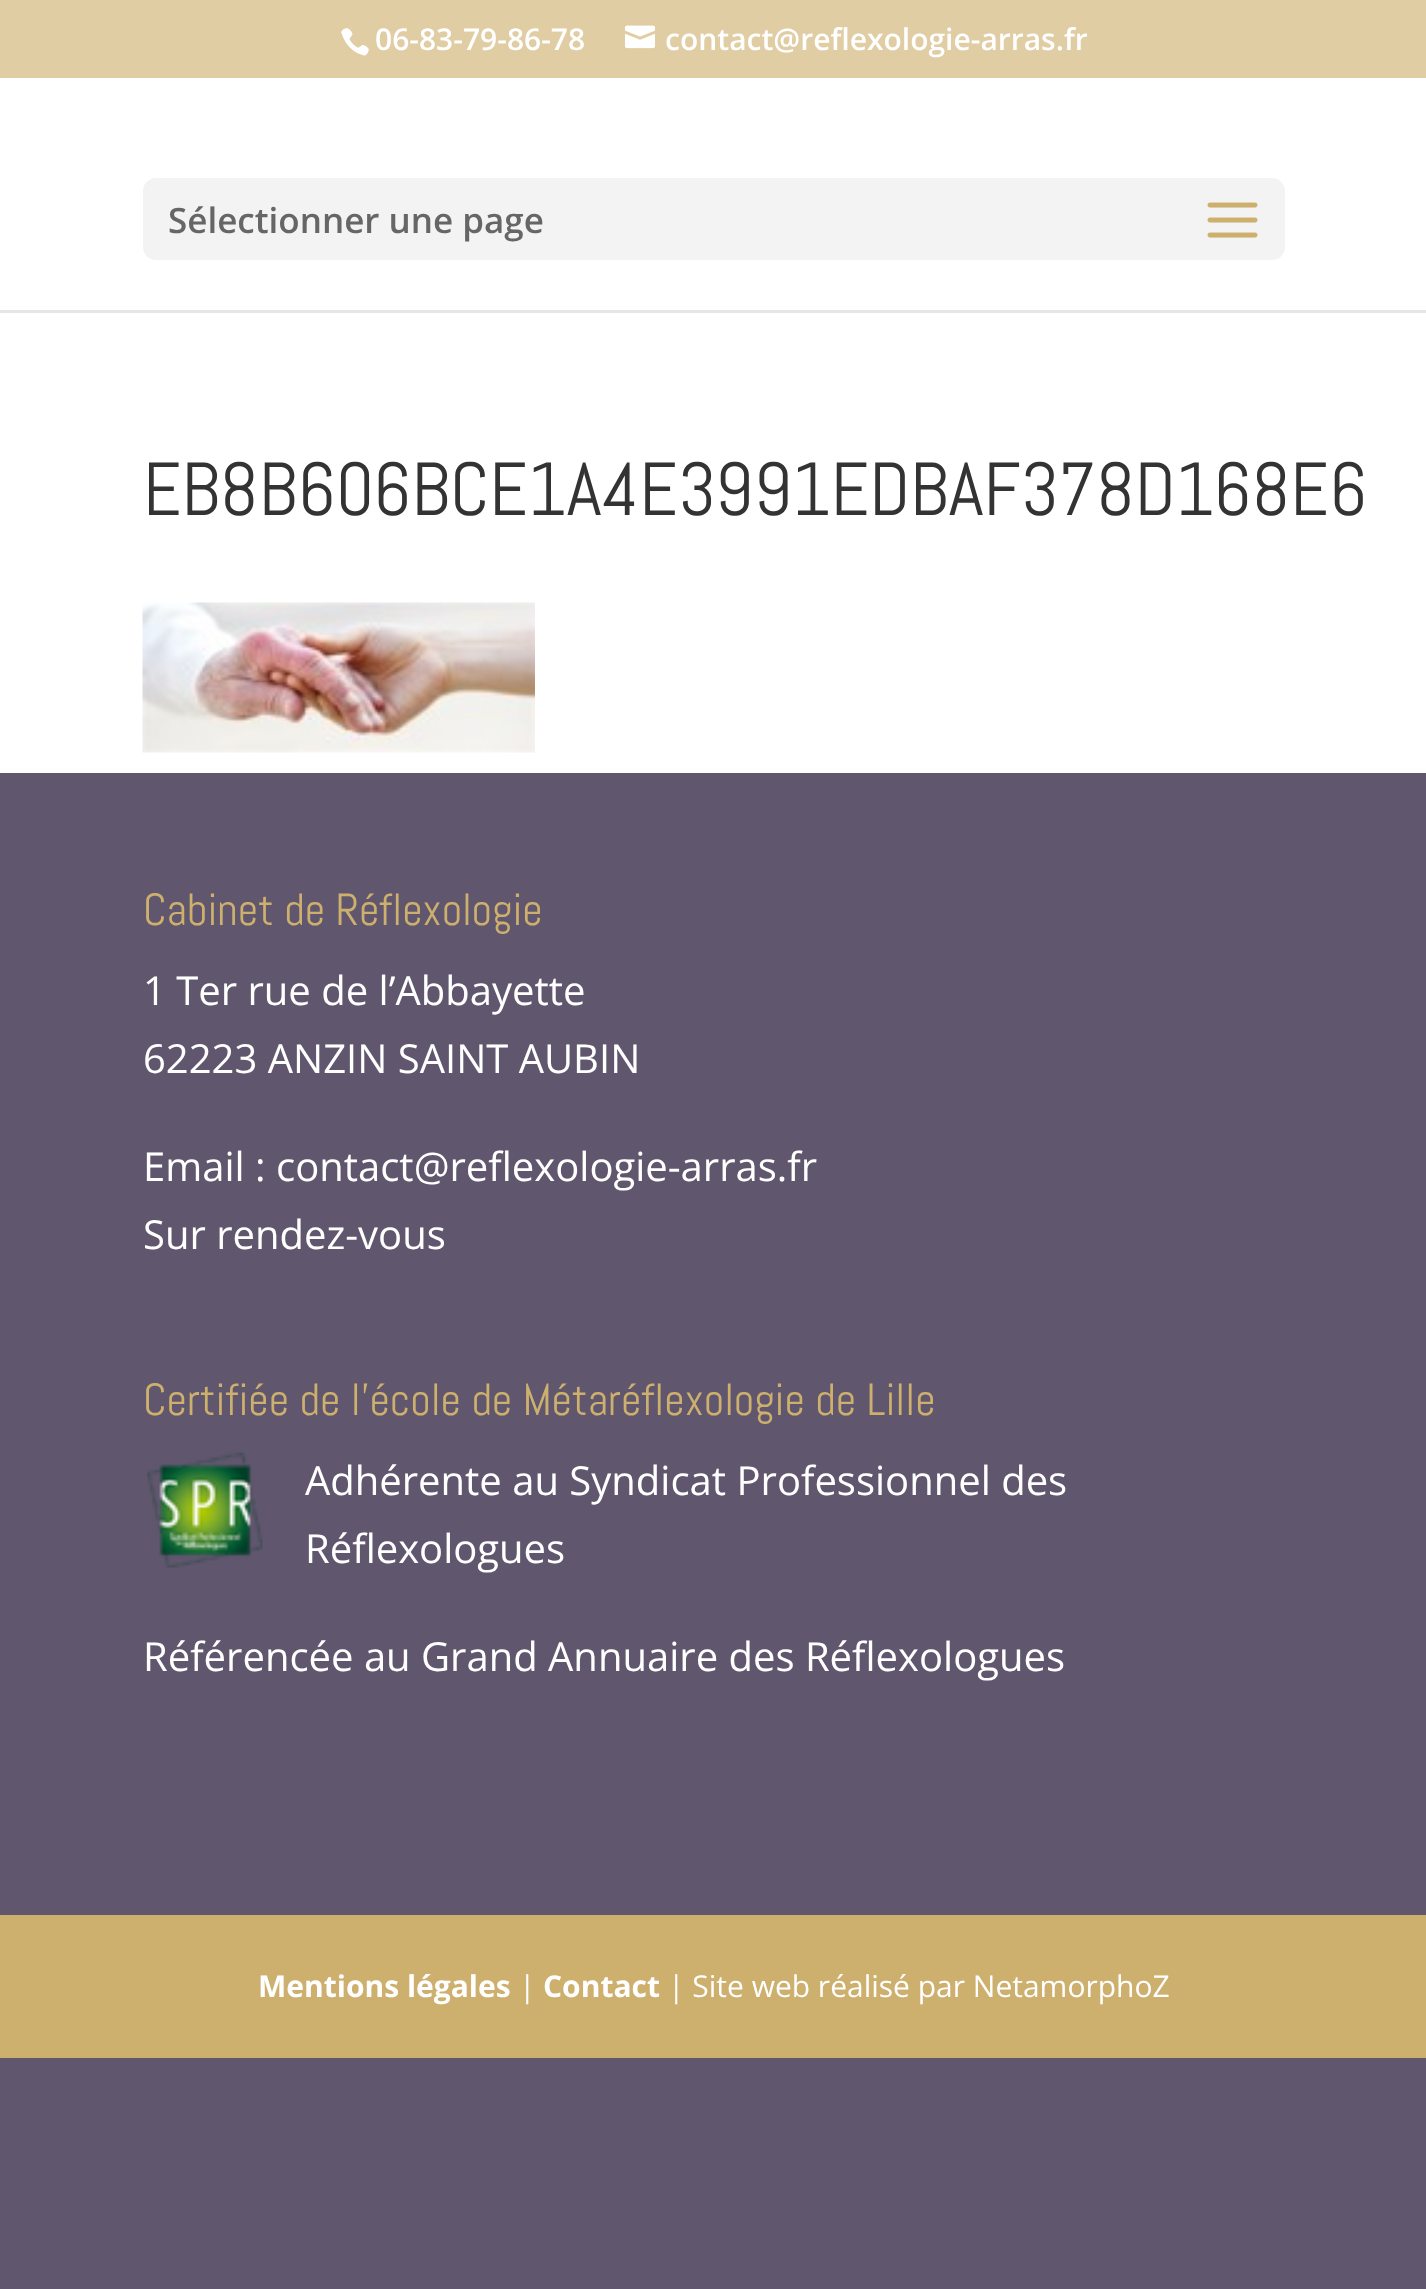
<svg xmlns="http://www.w3.org/2000/svg" width="1426" height="2289" viewBox="0 0 1426 2289">
  <rect width="100%" height="100%" fill="#60576e"/>
  <path d="M0 0h1426v78H0z" fill="#e0cda4"/>
  <image x="341" y="28" width="28" height="28" href="img/1.png"/>
  <image x="625" y="25" width="30" height="24" href="img/2.png"/>
  <path d="M0 310V313H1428V80V310Z" fill="#e6e6e6"/>
  <path d="M0 78h1426v232H0z" fill="#fff"/>
  <rect x="143" y="178" width="1142" height="82" rx="13" fill="#f3f3f3"/>
  <image x="1207" y="202" width="51" height="36" href="img/3.png"/>
  <path d="M0 313h1426v460H0z" fill="#fff"/>
  <image x="142" y="602" width="393" height="151" href="img/4.png"/>
  <image x="147" y="1452" width="116" height="116" href="img/5.png"/>
  <path d="M0 1915h1426v143H0z" fill="#cdaf6e"/>
  <g font-family="Open Sans" font-size="30" font-weight="600" fill="#fff">
    <text x="375" y="50">06-83-79-86-78</text>
    <text x="665" y="50">contact@reflexologie-arras.fr</text>
  </g>
  <text x="168" y="233" font-family="Open Sans" font-size="35" font-weight="600" fill="#666">Sélectionner une page</text>
  <text x="143" y="515" font-family="Abel" font-size="75" fill="#333">EB8B606BCE1A4E3991EDBAF378D168E6</text>
  <text x="143" y="925" font-family="Abel" font-size="45" fill="#cdaf6e">Cabinet de Réflexologie</text>
  <g font-family="Open Sans" font-size="40" fill="#fff">
    <text x="143" y="1005">1 Ter rue de l’Abbayette</text>
    <text x="143" y="1073">62223 ANZIN SAINT AUBIN</text>
    <text x="143" y="1181">Email : contact@reflexologie-arras.fr</text>
    <text x="143" y="1249">Sur rendez-vous</text>
  </g>
  <text x="143" y="1415" font-family="Abel" font-size="45" fill="#cdaf6e">Certifiée de l’école de Métaréflexologie de Lille</text>
  <g font-family="Open Sans" font-size="40" fill="#fff">
    <text x="305" y="1495">Adhérente au Syndicat Professionnel des</text>
    <text x="305" y="1563">Réflexologues</text>
    <text x="143" y="1671">Référencée au Grand Annuaire des Réflexologues</text>
  </g>
  <text x="258" y="1997" font-family="Open Sans" font-size="30" font-weight="bold" fill="#fff">Mentions légales</text>
  <text x="519" y="1997" font-family="Open Sans" font-size="30" fill="#fff">|</text>
  <text x="543" y="1997" font-family="Open Sans" font-size="30" font-weight="bold" fill="#fff">Contact</text>
  <text x="668" y="1997" font-family="Open Sans" font-size="30" fill="#fff">| Site web réalisé par NetamorphoZ</text>
</svg>
